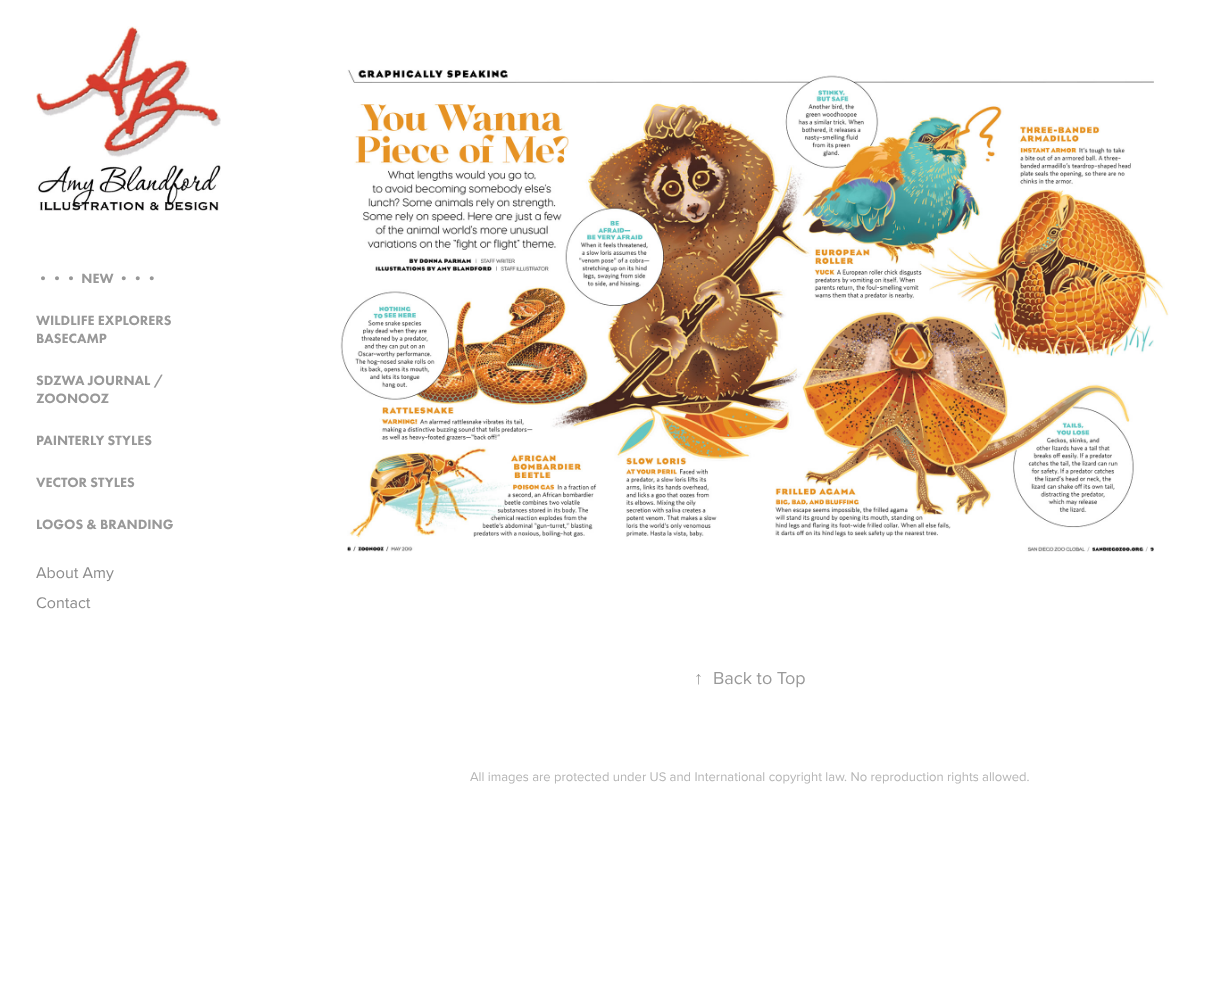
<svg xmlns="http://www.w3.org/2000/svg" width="1215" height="985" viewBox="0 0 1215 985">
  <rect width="100%" height="100%" fill="#fff"/>
  <image x="36" y="26" width="185" height="185" href="img/1.png"/>
  <image x="340" y="69" width="829" height="483" href="img/2.png"/>
  <g font-family="Futura PT" font-size="14" font-weight="900" fill="#999">
    <text x="36" y="283">••• NEW •••</text>
    <text x="36" y="325">WILDLIFE EXPLORERS</text>
    <text x="36" y="343">BASECAMP</text>
    <text x="36" y="385">SDZWA JOURNAL /</text>
    <text x="36" y="403">ZOONOOZ</text>
    <text x="36" y="445">PAINTERLY STYLES</text>
    <text x="36" y="487">VECTOR STYLES</text>
    <text x="36" y="529">LOGOS &amp; BRANDING</text>
  </g>
  <g font-family="Proxima Nova" font-size="16" fill="#8c8c8c">
    <text x="36" y="578">About Amy</text>
    <text x="36" y="608">Contact</text>
  </g>
  <text x="694" y="684" font-family="Liberation Serif" font-size="18" fill="#999">↑</text>
  <text x="713" y="684" font-family="Proxima Nova" font-size="18" fill="#999">Back to Top</text>
  <text x="470" y="781" font-family="Proxima Nova" font-size="13" fill="#b5b5b5">All images are protected under US and International copyright law. No reproduction rights allowed.</text>
</svg>
